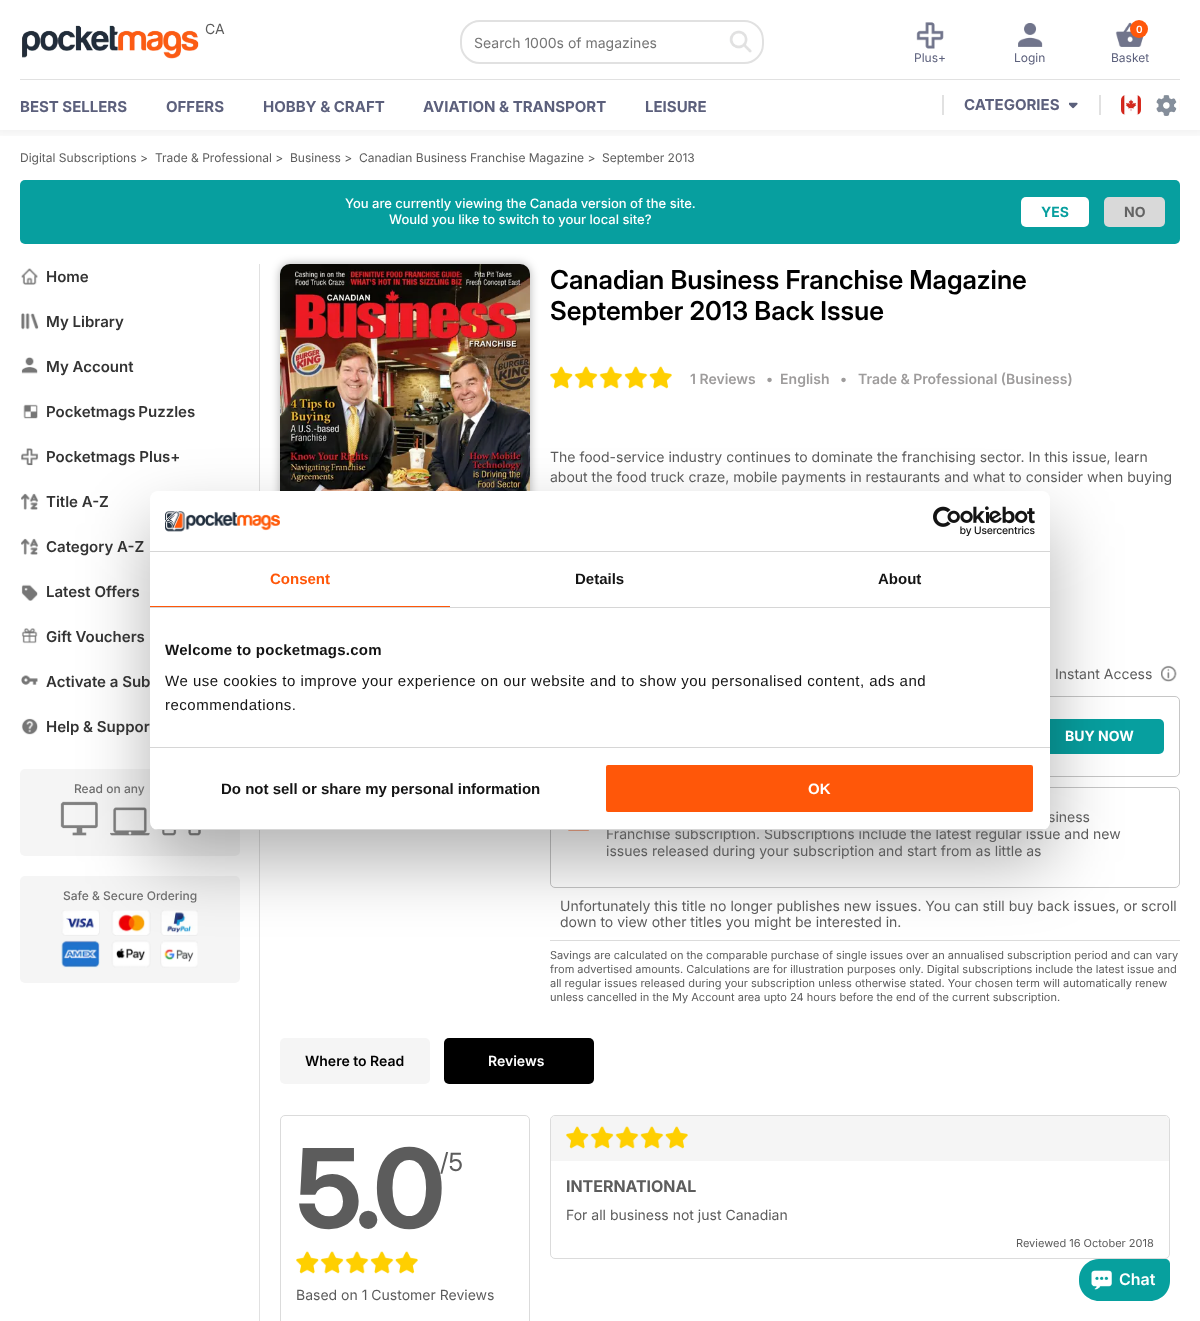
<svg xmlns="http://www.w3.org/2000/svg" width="1200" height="1321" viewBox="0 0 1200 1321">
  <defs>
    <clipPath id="clip1"><path d="M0 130h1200v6H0z"/></clipPath>
    <clipPath id="clip2"><rect x="150" y="491" width="900" height="339" rx="8"/></clipPath>
  </defs>
  <rect width="100%" height="100%" fill="#fff"/>
  <g clip-path="url(#clip1)">
    <path d="M-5 -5h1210v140H-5z" fill="#0000000d" filter="blur(5px)"/>
  </g>
  <path d="M20 79h1160v1H20z" fill="#e1e1e1"/>
  <image x="22" y="25" width="177" height="34" href="img/1.png"/>
  <rect x="461" y="21" width="302" height="42" rx="19" fill="none" stroke="#e1e1e1" stroke-width="2"/>
  <image x="729" y="30" width="23" height="23" href="img/2.png"/>
  <image x="916" y="22" width="28" height="27" href="img/3.png"/>
  <image x="1018" y="23" width="25" height="24" href="img/4.png"/>
  <image x="1115" y="22" width="29" height="25" href="img/5.png"/>
  <circle cx="1139" cy="29" r="9" fill="#ff580a"/>
  <path d="M942 95h2v20H942z" fill="#e1e1e1"/>
  <image x="1069" y="102" width="9" height="7" href="img/6.png"/>
  <path d="M1099 95h2v20H1099z" fill="#e1e1e1"/>
  <image x="1121" y="95" width="20" height="20" href="img/7.png"/>
  <image x="1156" y="95" width="24" height="21" href="img/8.png"/>
  <rect x="20" y="180" width="1160" height="64" rx="5" fill="#079f9f"/>
  <rect x="1021" y="197" width="68" height="30" rx="5" fill="#fff"/>
  <rect x="1104" y="197" width="61" height="30" rx="5" fill="#d9d9d9"/>
  <image x="21" y="268" width="17" height="17" href="img/9.png"/>
  <image x="21" y="313" width="18" height="17" href="img/10.png"/>
  <image x="21" y="357" width="17" height="17" href="img/11.png"/>
  <image x="23" y="404" width="15" height="15" href="img/12.png"/>
  <image x="21" y="448" width="18" height="18" href="img/13.png"/>
  <image x="21" y="493" width="18" height="17" href="img/14.png"/>
  <image x="21" y="538" width="18" height="17" href="img/14.png"/>
  <image x="21" y="584" width="17" height="17" href="img/15.png"/>
  <image x="21" y="628" width="17" height="16" href="img/16.png"/>
  <image x="21" y="675" width="17" height="10" href="img/17.png"/>
  <image x="21" y="718" width="17" height="17" href="img/18.png"/>
  <rect x="20" y="769" width="220" height="87" rx="5" fill="#f5f5f5"/>
  <image x="60" y="801" width="141" height="35" href="img/19.png"/>
  <rect x="20" y="876" width="220" height="107" rx="5" fill="#f5f5f5"/>
  <image x="61" y="910" width="137" height="58" href="img/20.png"/>
  <path d="M259 264h1v1057H259z" fill="#e1e1e1"/>
  <rect x="280" y="264" width="250" height="298" rx="10" fill="#0000004d" filter="blur(5px)"/>
  <image x="280" y="264" width="250" height="227" href="img/21.png"/>
  <image x="550" y="366" width="122" height="23" href="img/22.png"/>
  <image x="1161" y="665" width="16" height="17" href="img/23.png"/>
  <rect x="550.5" y="696.5" width="629" height="80" rx="4.5" fill="none" stroke="#c6c6c6"/>
  <rect x="1034" y="719" width="130" height="35" rx="5" fill="#079f9f"/>
  <rect x="550.5" y="787.5" width="629" height="100" rx="4.5" fill="none" stroke="#c6c6c6"/>
  <image x="568" y="830" width="21" height="1" href="img/24.png"/>
  <path d="M550 940h630v1H550z" fill="#dbdbdb"/>
  <rect x="280" y="1038" width="150" height="46" rx="5" fill="#f5f5f5"/>
  <rect x="444" y="1038" width="150" height="46" rx="5" fill="#000"/>
  <rect x="280.5" y="1115.5" width="249" height="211" rx="4.5" fill="none" stroke="#dbdbdb"/>
  <image x="296" y="1251" width="122" height="23" href="img/25.png"/>
  <rect x="550.5" y="1115.5" width="619" height="143" rx="4.5" fill="none" stroke="#dbdbdb"/>
  <path d="M555 1116H1165C1167 1116 1169 1118 1169 1120V1161H551V1120C551 1118 553 1116 555 1116Z" fill="#f5f5f5"/>
  <image x="566" y="1126" width="122" height="23" href="img/26.png"/>
  <path d="M1099 1259H1165C1168 1259 1170 1261 1170 1264V1281C1170 1292 1161 1301 1150 1301H1099C1088 1301 1079 1292 1079 1281V1279C1079 1268 1088 1259 1099 1259Z" fill="#07a09e"/>
  <image x="1091" y="1270" width="21" height="20" href="img/27.png"/>
  <rect x="150" y="523" width="900" height="339" rx="8" fill="#0000004d" filter="blur(34px)"/>
  <text x="205" y="34" font-family="Inter" font-size="14" fill="#5c5c5c">CA</text>
  <text x="474" y="48" font-family="Inter" font-size="14" fill="#757575">Search 1000s of magazines</text>
  <g font-family="Inter" font-size="12" fill="#5c607c">
    <text x="914" y="62">Plus+</text>
    <text x="1014" y="62">Login</text>
  </g>
  <text x="1136" y="33" font-family="Inter" font-size="10" font-weight="600" fill="#fff">0</text>
  <text x="1111" y="62" font-family="Inter" font-size="12" fill="#5c607c">Basket</text>
  <g font-family="Inter" font-size="15" font-weight="bold" fill="#5c607c">
    <text x="20" y="112">BEST SELLERS</text>
    <text x="166" y="112">OFFERS</text>
    <text x="263" y="112">HOBBY &amp; CRAFT</text>
    <text x="423" y="112">AVIATION &amp; TRANSPORT</text>
    <text x="645" y="112">LEISURE</text>
    <text x="964" y="110">CATEGORIES</text>
  </g>
  <g font-family="Inter" font-size="12" fill="#5c5c5c">
    <text x="20" y="162">Digital Subscriptions &gt;</text>
    <text x="155" y="162">Trade &amp; Professional &gt;</text>
    <text x="290" y="162">Business &gt;</text>
    <text x="359" y="162">Canadian Business Franchise Magazine &gt;</text>
    <text x="602" y="162">September 2013</text>
  </g>
  <g font-family="Inter" font-size="13" font-weight="500" fill="#fff">
    <text x="345" y="208">You are currently viewing the Canada version of the site.</text>
    <text x="389" y="224">Would you like to switch to your local site?</text>
  </g>
  <text x="1041" y="217" font-family="Inter" font-size="14" font-weight="bold" fill="#079f9f">YES</text>
  <text x="1124" y="217" font-family="Inter" font-size="14" font-weight="bold" fill="#646464">NO</text>
  <g font-family="Inter" font-size="15" font-weight="600" fill="#333">
    <text x="46" y="282">Home</text>
    <text x="46" y="327">My Library</text>
    <text x="46" y="372">My Account</text>
    <text x="46" y="417" word-spacing="-1">Pocketmags Puzzles</text>
    <text x="46" y="462">Pocketmags Plus+</text>
    <text x="46" y="507">Title A-Z</text>
    <text x="46" y="552">Category A-Z</text>
    <text x="46" y="597">Latest Offers</text>
    <text x="46" y="642">Gift Vouchers</text>
    <text x="46" y="687">Activate a Sub</text>
    <text x="46" y="732">Help &amp; Suppor</text>
  </g>
  <g font-family="Inter" font-size="12" font-weight="500" fill="#6d6d6d">
    <text x="74" y="793">Read on any</text>
    <text x="63" y="900">Safe &amp; Secure Ordering</text>
  </g>
  <g font-family="'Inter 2'" font-size="26" font-weight="600" fill="#000">
    <text x="550" y="289">Canadian Business Franchise Magazine</text>
    <text x="550" y="320">September 2013 Back Issue</text>
  </g>
  <g font-family="Inter" font-size="14" font-weight="600" fill="#9e9c9c">
    <text x="690" y="384">1 Reviews</text>
    <text x="766" y="384" xml:space="preserve">•  English</text>
    <text x="840" y="384">•</text>
    <text x="858" y="384">Trade &amp; Professional (Business)</text>
  </g>
  <g font-family="Inter" font-size="14" fill="#5c5c5c">
    <text x="550" y="462">The food-service industry continues to dominate the franchising sector. In this issue, learn</text>
    <text x="550" y="482">about the food truck craze, mobile payments in restaurants and what to consider when buying</text>
    <text x="1055" y="679">Instant Access</text>
  </g>
  <text x="1065" y="741" font-family="Inter" font-size="14" font-weight="bold" fill="#fff">BUY NOW</text>
  <g font-family="Inter" font-size="14" fill="#5c5c5c">
    <text x="1048" y="822">siness</text>
    <text x="606" y="839">Franchise subscription. Subscriptions include the latest regular issue and new</text>
    <text x="606" y="856">issues released during your subscription and start from as little as</text>
    <text x="560" y="911">Unfortunately this title no longer publishes new issues. You can still buy back issues, or scroll</text>
    <text x="560" y="927">down to view other titles you might be interested in.</text>
  </g>
  <g font-family="Inter" font-size="11" fill="#5c5c5c">
    <text x="550" y="959">Savings are calculated on the comparable purchase of single issues over an annualised subscription period and can vary</text>
    <text x="550" y="973">from advertised amounts. Calculations are for illustration purposes only. Digital subscriptions include the latest issue and</text>
    <text x="550" y="987">all regular issues released during your subscription unless otherwise stated. Your chosen term will automatically renew</text>
    <text x="550" y="1001">unless cancelled in the My Account area upto 24 hours before the end of the current subscription.</text>
  </g>
  <text x="305" y="1066" font-family="Inter" font-size="14" font-weight="600" fill="#000">Where to Read</text>
  <text x="488" y="1066" font-family="Inter" font-size="14" font-weight="600" fill="#fff">Reviews</text>
  <text x="296" y="1228" font-family="'Inter 2'" font-size="110" font-weight="bold" letter-spacing="-5" fill="#5c5c5c">5.0</text>
  <text x="440" y="1171" font-family="'Inter 2'" font-size="25" fill="#5c5c5c">/5</text>
  <text x="296" y="1300" font-family="Inter" font-size="14" fill="#5c5c5c">Based on 1 Customer Reviews</text>
  <text x="566" y="1192" font-family="'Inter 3'" font-size="16" font-weight="bold" fill="#5c5c5c">INTERNATIONAL</text>
  <text x="566" y="1220" font-family="Inter" font-size="14" fill="#5c5c5c">For all business not just Canadian</text>
  <text x="1016" y="1247" font-family="Inter" font-size="11" fill="#5c5c5c">Reviewed 16 October 2018</text>
  <text x="1119" y="1285" font-family="Inter" font-size="16" font-weight="600" fill="#fff">Chat</text>
  <rect x="150" y="491" width="900" height="339" rx="8" fill="#fff"/>
  <path d="M150 551h900v1H150z" fill="#d6d6d6"/>
  <image x="165" y="511" width="115" height="21" href="img/28.png"/>
  <image x="933" y="506" width="102" height="30" href="img/29.png"/>
  <path d="M150 607h900v1H150z" fill="#d6d6d6"/>
  <path d="M150 606h300v1H150z" fill="#ff5709"/>
  <text x="270" y="584" font-family="Liberation Sans" font-size="15" font-weight="bold" fill="#ff5709">Consent</text>
  <g font-family="Liberation Sans" font-size="15" font-weight="bold" fill="#141414">
    <text x="575" y="584">Details</text>
    <text x="878" y="584">About</text>
  </g>
  <path d="M150 747h900v1H150z" fill="#d6d6d6"/>
  <text x="165" y="655" font-family="Liberation Sans" font-size="15" font-weight="bold" letter-spacing="0.25" fill="#141414">Welcome to pocketmags.com</text>
  <g font-family="Liberation Sans" font-size="15" letter-spacing="0.5" fill="#141414">
    <text x="165" y="686">We use cookies to improve your experience on our website and to show you personalised content, ads and</text>
    <text x="165" y="710">recommendations.</text>
  </g>
  <g clip-path="url(#clip2)">
    <path d="M150 829h900v1H150z" fill="#d6d6d6"/>
  </g>
  <text x="221" y="794" font-family="Liberation Sans" font-size="15" font-weight="bold" fill="#141414">Do not sell or share my personal information</text>
  <rect x="605" y="764" width="429" height="49" rx="3" fill="#ff5709" stroke="#fff" stroke-width="2"/>
  <text x="808" y="794" font-family="Liberation Sans" font-size="15" font-weight="bold" fill="#fff">OK</text>
</svg>
